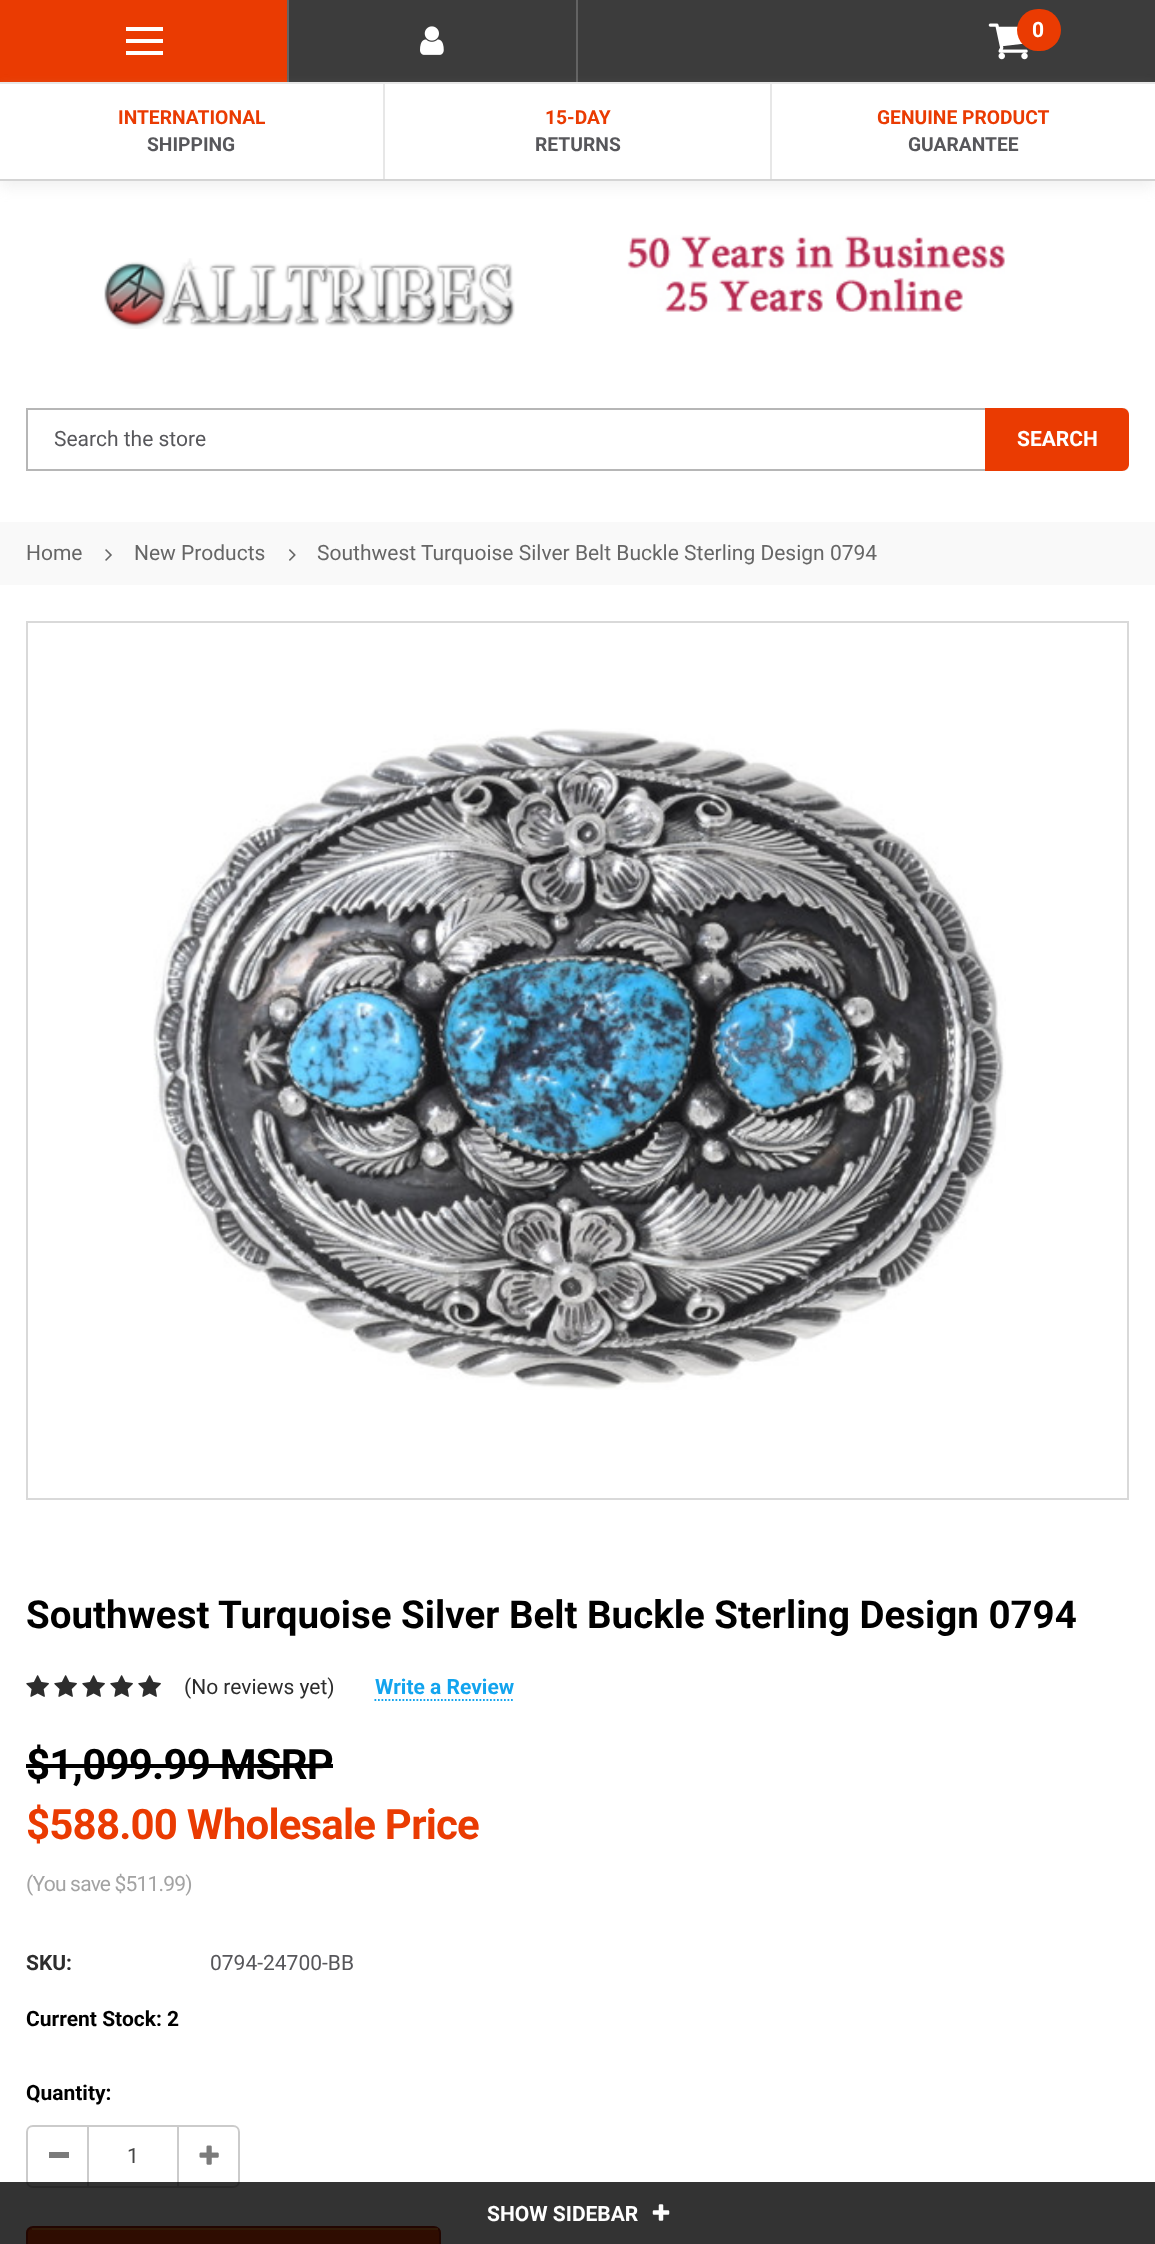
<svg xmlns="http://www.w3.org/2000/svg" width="1155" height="2244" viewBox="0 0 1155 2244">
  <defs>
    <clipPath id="clip1"><path d="M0 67H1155V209H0ZM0 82H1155V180H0Z" clip-rule="evenodd"/></clipPath>
    <clipPath id="clip2"><rect x="26" y="2226" width="415" height="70" rx="7"/></clipPath>
    <linearGradient id="g1" gradientUnits="userSpaceOnUse" x1="234" y1="2228" x2="234" y2="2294"><stop offset="0" stop-color="#ea4506"/><stop offset="0.46" stop-color="#e54009"/><stop offset="0.54" stop-color="#e03b0c"/><stop offset="1" stop-color="#d73311"/></linearGradient>
  </defs>
  <rect width="100%" height="100%" fill="#fff"/>
  <path d="M289 0h866v82H289z" fill="#3c3c3c"/>
  <path d="M0 0h287v82H0z" fill="#ea3b02"/>
  <path d="M287 0h2v82H287z" fill="#636363"/>
  <path d="M126 27h37v4H126z" fill="#fff"/>
  <path d="M126 51h37v4H126z" fill="#fff"/>
  <path d="M126 39h37v4H126z" fill="#fff"/>
  <path d="M576 0h2v82H576z" fill="#636363"/>
  <image x="420" y="26" width="24" height="29" href="img/1.png"/>
  <image x="988" y="23" width="40" height="37" href="img/2.png"/>
  <rect x="1017" y="9" width="44" height="42" rx="21" fill="#ea3b02"/>
  <g clip-path="url(#clip1)">
    <path d="M0 89h1155v98H0z" fill="#cccccc4d" filter="blur(7px)"/>
  </g>
  <path d="M0 82h1155v2H0z" fill="#e7e7e7"/>
  <path d="M0 179h1155v2H0z" fill="#d4d4d4"/>
  <path d="M383 84h2v95H383z" fill="#e7e7e7"/>
  <path d="M770 84h2v95H770z" fill="#e7e7e7"/>
  <image x="104" y="258" width="411" height="71" href="img/3.png"/>
  <image x="627" y="235" width="378" height="77" href="img/4.png"/>
  <rect x="26" y="408" width="1103" height="63" rx="5" fill="#eee"/>
  <path d="M28 410h957v59H28z" fill="#fff"/>
  <path d="M27 409h1005v61H27z" fill="none" stroke="#b6b6b6" stroke-width="2"/>
  <path d="M985 408H1122C1126 408 1129 411 1129 415V464C1129 468 1126 471 1122 471H985Z" fill="#ea3b02"/>
  <path d="M0 522h1155v63H0z" fill="#f9f9f9"/>
  <image x="105" y="549" width="7" height="12" href="img/5.png"/>
  <image x="289" y="549" width="7" height="12" href="img/6.png"/>
  <path d="M27 622h1101v877H27z" fill="none" stroke="#d9d9d9" stroke-width="2"/>
  <image x="153" y="728" width="853" height="662" href="img/7.png"/>
  <image x="26" y="1675" width="23" height="22" href="img/8.png"/>
  <image x="54" y="1675" width="23" height="22" href="img/8.png"/>
  <image x="82" y="1675" width="23" height="22" href="img/8.png"/>
  <image x="110" y="1675" width="23" height="22" href="img/8.png"/>
  <image x="138" y="1675" width="23" height="22" href="img/8.png"/>
  <path d="M374.5 1700H514.5" fill="none" stroke="#13a4ee" stroke-width="1.8" stroke-dasharray="1.75 1.75"/>
  <path d="M26 1764h307v4H26z" fill="#000"/>
  <path d="M33 2126H88V2187H33C29.5 2187 27 2184.5 27 2181V2132C27 2128.5 29.5 2126 33 2126Z" fill="none" stroke="#cbcbcb" stroke-width="2"/>
  <path d="M49 2152h20v6H49z" fill="#7b7b7b"/>
  <path d="M89 2125h88v2H89z" fill="#cbcbcb"/>
  <path d="M89 2186h88v2H89z" fill="#cbcbcb"/>
  <path d="M178 2126H233C236.5 2126 239 2128.5 239 2132V2181C239 2184.5 236.5 2187 233 2187H178Z" fill="none" stroke="#cbcbcb" stroke-width="2"/>
  <image x="199" y="2145" width="20" height="20" href="img/9.png"/>
  <g clip-path="url(#clip2)">
    <path d="M26 2228h415v16H26z" fill="url(#g1)"/>
  </g>
  <rect x="27" y="2227" width="413" height="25" rx="6" fill="none" stroke="#ab2209" stroke-width="2"/>
  <path d="M32 2228h406v2H32z" fill="#fa832c"/>
  <path d="M0 2182h1155v62H0z" fill="#000000cc"/>
  <image x="652" y="2204" width="18" height="17" href="img/10.png"/>
  <text x="1032" y="37" font-family="Roboto" font-size="21" font-weight="bold" fill="#fff">0</text>
  <text x="118" y="124" font-family="Roboto" font-size="19.25" font-weight="bold" fill="#ea3b02">INTERNATIONAL</text>
  <text x="147" y="151" font-family="Roboto" font-size="19.25" font-weight="bold" fill="#57575b">SHIPPING</text>
  <text x="545" y="124" font-family="Roboto" font-size="19.25" font-weight="bold" fill="#ea3b02">15-DAY</text>
  <text x="535" y="151" font-family="Roboto" font-size="19.25" font-weight="bold" fill="#57575b">RETURNS</text>
  <text x="877" y="124" font-family="Roboto" font-size="19.25" font-weight="bold" fill="#ea3b02">GENUINE PRODUCT</text>
  <text x="908" y="151" font-family="Roboto" font-size="19.25" font-weight="bold" fill="#57575b">GUARANTEE</text>
  <text x="54" y="446" font-family="Roboto" font-size="21" fill="#57575b">Search the store</text>
  <text x="1017" y="446" font-family="Roboto" font-size="21" font-weight="bold" fill="#fff">SEARCH</text>
  <g font-family="Roboto" font-size="21" fill="#666">
    <text x="26" y="560">Home</text>
    <text x="134" y="560">New Products</text>
    <text x="317" y="560">Southwest Turquoise Silver Belt Buckle Sterling Design 0794</text>
  </g>
  <text x="26" y="1628" font-family="Roboto" font-size="38.5" font-weight="bold" fill="#000">Southwest Turquoise Silver Belt Buckle Sterling Design 0794</text>
  <text x="184" y="1694" font-family="Roboto" font-size="21" fill="#2d2d2d">(No reviews yet)</text>
  <text x="375" y="1694" font-family="Roboto" font-size="21" font-weight="bold" fill="#13a4ee">Write a Review</text>
  <text x="26" y="1779" font-family="Roboto" font-size="42" font-weight="bold" letter-spacing="-0.8" fill="#000">$1,099.99 MSRP</text>
  <text x="26" y="1839" font-family="Roboto" font-size="42" font-weight="bold" letter-spacing="-0.8" fill="#ea3b02">$588.00 Wholesale Price</text>
  <text x="26" y="1891" font-family="Roboto" font-size="21" letter-spacing="-0.8" fill="#a3a3a3">(You save $511.99)</text>
  <text x="26" y="1970" font-family="Roboto" font-size="21" font-weight="bold" fill="#2d2d2d">SKU:</text>
  <text x="210" y="1970" font-family="Roboto" font-size="21" fill="#57575b">0794-24700-BB</text>
  <g font-family="Roboto" font-size="21" font-weight="bold" fill="#000">
    <text x="26" y="2026">Current Stock: 2</text>
    <text x="26" y="2100">Quantity:</text>
  </g>
  <text x="127" y="2163" font-family="Roboto" font-size="21" fill="#454545">1</text>
  <text x="487" y="2221" font-family="Roboto" font-size="21" font-weight="bold" fill="#fff">SHOW SIDEBAR</text>
</svg>
